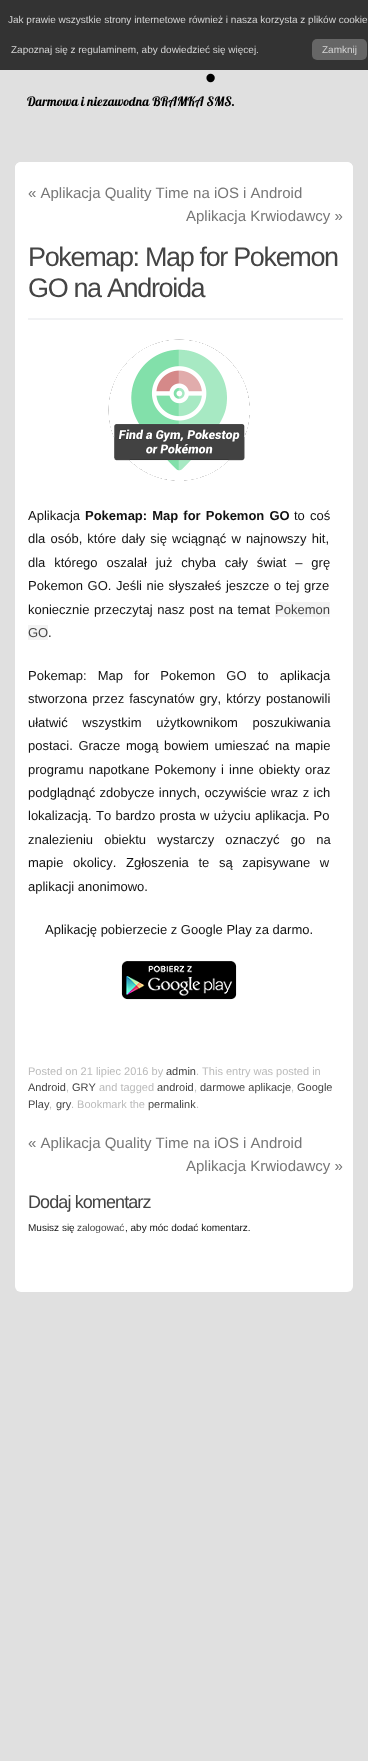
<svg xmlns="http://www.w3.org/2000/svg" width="368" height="1761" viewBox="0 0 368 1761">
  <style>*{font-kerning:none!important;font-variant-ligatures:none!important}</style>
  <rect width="100%" height="100%" fill="#e0e0e0"/>
  <rect x="15" y="162" width="338" height="1130" rx="6" fill="#fff"/>
  <path d="M0 0h368v70H0z" fill="#333"/>
  <rect x="312" y="39" width="55" height="21" rx="5" fill="#666"/>
  <rect x="15" y="162" width="338" height="1091" rx="6" fill="#fff"/>
  <path d="M28 318h315v2H28z" fill="#f1f2f4"/>
  <image x="108" y="339" width="142" height="142" href="img/1.png"/>
  <path d="M275 602h55v15H275z" fill="#f3f3f3"/>
  <path d="M28 625h20v15H28z" fill="#f3f3f3"/>
  <image x="121" y="961" width="116" height="39" href="img/2.png"/>
  <g font-family="Liberation Sans" font-size="10" fill="#d4d4d4">
    <text x="8" y="23">Jak prawie wszystkie strony internetowe również i nasza korzysta z plików cookie</text>
    <text x="11" y="53">Zapoznaj się z regulaminem, aby dowiedzieć się więcej.</text>
    <text x="322" y="53">Zamknij</text>
  </g>
  <g font-family="Liberation Sans" font-size="15" fill="#777">
    <text x="28" y="198">« Aplikacja Quality Time na iOS i Android</text>
    <text x="186" y="221">Aplikacja Krwiodawcy »</text>
  </g>
  <g font-family="Liberation Sans" font-size="27" letter-spacing="-1.35" fill="#444">
    <text x="28" y="266">Pokemap: Map for Pokemon</text>
    <text x="28" y="297">GO na Androida</text>
  </g>
  <text x="28" y="520" font-family="Liberation Sans" font-size="13" fill="#111">Aplikacja</text>
  <text x="85" y="520" word-spacing="1.5" font-family="Liberation Sans" font-size="13" font-weight="bold" fill="#111">Pokemap: Map for Pokemon GO</text>
  <g font-family="Liberation Sans" font-size="13" fill="#111">
    <text x="294" y="520" word-spacing="1.5">to coś</text>
    <text x="28" y="543" word-spacing="1.5">dla osób, które dały się wciągnąć w najnowszy hit,</text>
    <text x="28" y="567" word-spacing="5.25">dla którego oszalał już chyba cały świat – grę</text>
    <text x="28" y="590" word-spacing="1">Pokemon GO. Jeśli nie słyszałeś jeszcze o tej grze</text>
    <text x="28" y="614" word-spacing="1">koniecznie przeczytaj nasz post na temat</text>
  </g>
  <g font-family="Liberation Sans" font-size="13" fill="#444">
    <text x="275" y="614">Pokemon</text>
    <text x="28" y="637">GO</text>
  </g>
  <g font-family="Liberation Sans" font-size="13" fill="#111">
    <text x="48" y="637">.</text>
    <text x="28" y="680" word-spacing="7.5">Pokemap: Map for Pokemon GO to aplikacja</text>
    <text x="28" y="703" word-spacing="1.5">stworzona przez fascynatów gry, którzy postanowili</text>
    <text x="28" y="727" word-spacing="11">ułatwić wszystkim użytkownikom poszukiwania</text>
    <text x="28" y="750" word-spacing="2">postaci. Gracze mogą bowiem umieszać na mapie</text>
    <text x="28" y="774" word-spacing="1.5">programu napotkane Pokemony i inne obiekty oraz</text>
    <text x="28" y="797" word-spacing="0.75">podglądnąć zdobycze innych, oczywiście wraz z ich</text>
    <text x="28" y="820" word-spacing="0.75">lokalizacją. To bardzo prosta w użyciu aplikacja. Po</text>
    <text x="28" y="844" word-spacing="7.5">znalezieniu obiektu wystarczy oznaczyć go na</text>
    <text x="28" y="867" word-spacing="6">mapie okolicy. Zgłoszenia te są zapisywane w</text>
    <text x="28" y="891">aplikacji anonimowo.</text>
    <text x="45" y="934">Aplikację pobierzecie z Google Play za darmo.</text>
  </g>
  <text x="28" y="1075" font-family="Liberation Sans" font-size="11" fill="#bbb">Posted on 21 lipiec 2016 by</text>
  <text x="166" y="1075" font-family="Liberation Sans" font-size="11" fill="#444">admin</text>
  <text x="196" y="1075" font-family="Liberation Sans" font-size="11" fill="#bbb">. This entry was posted in</text>
  <text x="28" y="1091" font-family="Liberation Sans" font-size="11" fill="#444">Android</text>
  <text x="66" y="1091" font-family="Liberation Sans" font-size="11" fill="#bbb">,</text>
  <text x="72" y="1091" font-family="Liberation Sans" font-size="11" fill="#444">GRY</text>
  <text x="99" y="1091" font-family="Liberation Sans" font-size="11" fill="#bbb">and tagged</text>
  <text x="157" y="1091" font-family="Liberation Sans" font-size="11" fill="#444">android</text>
  <text x="194" y="1091" font-family="Liberation Sans" font-size="11" fill="#bbb">,</text>
  <text x="200" y="1091" font-family="Liberation Sans" font-size="11" fill="#444">darmowe aplikacje</text>
  <text x="291" y="1091" font-family="Liberation Sans" font-size="11" fill="#bbb">,</text>
  <g font-family="Liberation Sans" font-size="11" fill="#444">
    <text x="297" y="1091">Google</text>
    <text x="28" y="1108">Play</text>
  </g>
  <text x="49" y="1108" font-family="Liberation Sans" font-size="11" fill="#bbb">,</text>
  <text x="56" y="1108" font-family="Liberation Sans" font-size="11" fill="#444">gry</text>
  <text x="71" y="1108" font-family="Liberation Sans" font-size="11" fill="#bbb">. Bookmark the</text>
  <text x="148" y="1108" font-family="Liberation Sans" font-size="11" fill="#444">permalink</text>
  <text x="196" y="1108" font-family="Liberation Sans" font-size="11" fill="#bbb">.</text>
  <g font-family="Liberation Sans" font-size="15" fill="#777">
    <text x="28" y="1148">« Aplikacja Quality Time na iOS i Android</text>
    <text x="186" y="1171">Aplikacja Krwiodawcy »</text>
  </g>
  <text x="28" y="1208" font-family="Liberation Sans" font-size="18" letter-spacing="-0.9" fill="#444">Dodaj komentarz</text>
  <text x="28" y="1231" font-family="Liberation Sans" font-size="10" fill="#111">Musisz się</text>
  <text x="77" y="1231" font-family="Liberation Sans" font-size="10" fill="#444">zalogować</text>
  <text x="125" y="1231" font-family="Liberation Sans" font-size="10" fill="#111">, aby móc dodać komentarz.</text>
  <text x="205" y="82" font-family="Lobster" font-size="45" font-weight="bold" fill="#000">.</text>
  <text x="27" y="106" font-family="Lobster" font-size="13" fill="#000">Darmowa i niezawodna BRAMKA SMS.</text>
</svg>
